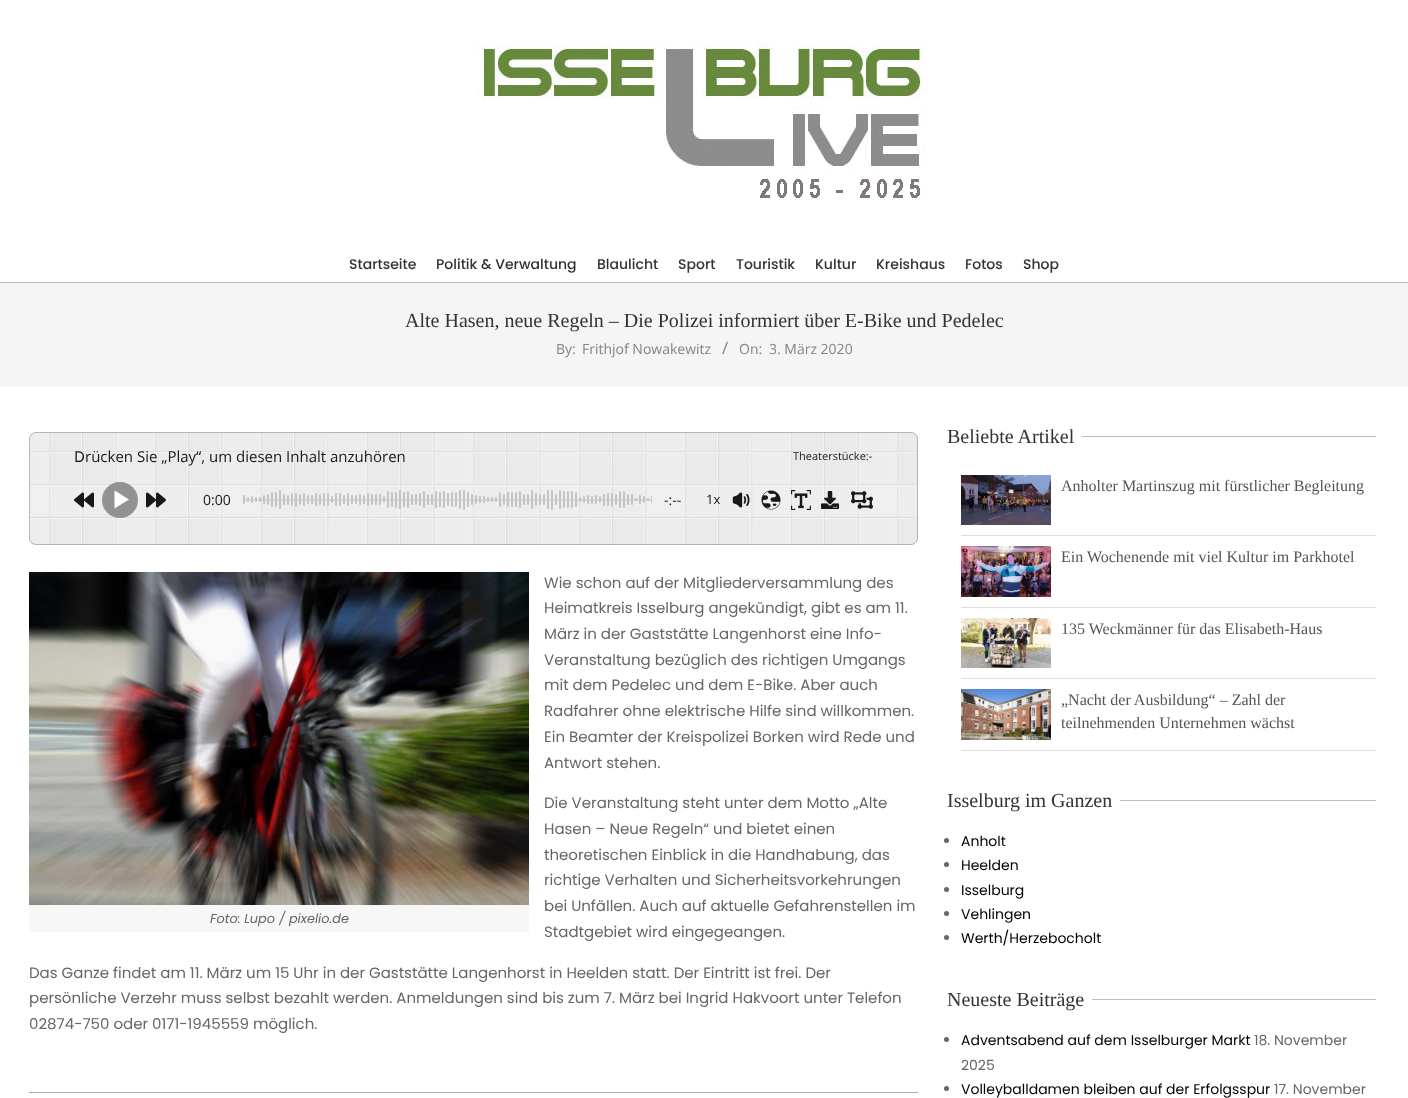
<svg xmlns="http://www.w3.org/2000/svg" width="1408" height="1098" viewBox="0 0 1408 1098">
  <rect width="100%" height="100%" fill="#fff"/>
  <path d="M0 282h1408v1H0z" fill="#b8b8b8"/>
  <image x="478" y="43" width="448" height="155" href="img/1.png"/>
  <path d="M0 283h1408v104H0z" fill="#f5f5f5"/>
  <path d="M29 1092h889v1H29z" fill="#ababab"/>
  <image x="29" y="432" width="889" height="113" href="img/2.png"/>
  <rect x="29" y="432" width="889" height="113" rx="7" fill="#f2f2f261"/>
  <rect x="29.5" y="432.5" width="888" height="112" rx="6.5" fill="none" stroke="#8989898f"/>
  <image x="74" y="492" width="20" height="16" href="img/3.png"/>
  <circle cx="120" cy="500" r="18" fill="#929292"/>
  <path d="M115.5 491L129 499.5L114.5 508.5V491Z" fill="#fff"/>
  <image x="146" y="492" width="20" height="16" href="img/4.png"/>
  <path d="M243 499h409v2H243z" fill="#ada9a94a"/>
  <rect x="243" y="495" width="2" height="9" rx="1" fill="#c4c4c4"/>
  <rect x="247" y="497" width="2" height="5" rx="1" fill="#c4c4c4"/>
  <rect x="251" y="496" width="2" height="7" rx="1" fill="#c4c4c4"/>
  <rect x="255" y="497" width="2" height="5" rx="1" fill="#c4c4c4"/>
  <rect x="259" y="497" width="2" height="5" rx="1" fill="#c4c4c4"/>
  <rect x="263" y="495" width="2" height="9" rx="1" fill="#c4c4c4"/>
  <rect x="267" y="494" width="2" height="11" rx="1" fill="#c4c4c4"/>
  <rect x="271" y="492" width="2" height="15" rx="1" fill="#c4c4c4"/>
  <rect x="275" y="492" width="2" height="15" rx="1" fill="#c4c4c4"/>
  <rect x="279" y="490" width="2" height="19" rx="1" fill="#c4c4c4"/>
  <rect x="283" y="494" width="2" height="11" rx="1" fill="#c4c4c4"/>
  <rect x="287" y="495" width="2" height="10" rx="1" fill="#c4c4c4"/>
  <rect x="291" y="493" width="2" height="13" rx="1" fill="#c4c4c4"/>
  <rect x="295" y="493" width="2" height="14" rx="1" fill="#c4c4c4"/>
  <rect x="299" y="494" width="2" height="11" rx="1" fill="#c4c4c4"/>
  <rect x="303" y="493" width="2" height="13" rx="1" fill="#c4c4c4"/>
  <rect x="307" y="495" width="2" height="9" rx="1" fill="#c4c4c4"/>
  <rect x="311" y="495" width="2" height="9" rx="1" fill="#c4c4c4"/>
  <rect x="315" y="493" width="2" height="13" rx="1" fill="#c4c4c4"/>
  <rect x="319" y="494" width="2" height="11" rx="1" fill="#c4c4c4"/>
  <rect x="323" y="493" width="2" height="13" rx="1" fill="#c4c4c4"/>
  <rect x="327" y="493" width="2" height="13" rx="1" fill="#c4c4c4"/>
  <rect x="331" y="496" width="2" height="7" rx="1" fill="#c4c4c4"/>
  <rect x="335" y="493" width="2" height="13" rx="1" fill="#c4c4c4"/>
  <rect x="339" y="493" width="2" height="13" rx="1" fill="#c4c4c4"/>
  <rect x="343" y="495" width="2" height="9" rx="1" fill="#c4c4c4"/>
  <rect x="347" y="493" width="2" height="13" rx="1" fill="#c4c4c4"/>
  <rect x="351" y="495" width="2" height="9" rx="1" fill="#c4c4c4"/>
  <rect x="355" y="495" width="2" height="9" rx="1" fill="#c4c4c4"/>
  <rect x="359" y="494" width="2" height="11" rx="1" fill="#c4c4c4"/>
  <rect x="363" y="495" width="2" height="9" rx="1" fill="#c4c4c4"/>
  <rect x="367" y="493" width="2" height="13" rx="1" fill="#c4c4c4"/>
  <rect x="371" y="494" width="2" height="11" rx="1" fill="#c4c4c4"/>
  <rect x="375" y="494" width="2" height="11" rx="1" fill="#c4c4c4"/>
  <rect x="379" y="494" width="2" height="11" rx="1" fill="#c4c4c4"/>
  <rect x="383" y="496" width="2" height="7" rx="1" fill="#c4c4c4"/>
  <rect x="387" y="491" width="2" height="17" rx="1" fill="#c4c4c4"/>
  <rect x="391" y="492" width="2" height="15" rx="1" fill="#c4c4c4"/>
  <rect x="395" y="492" width="2" height="16" rx="1" fill="#c4c4c4"/>
  <rect x="399" y="490" width="2" height="19" rx="1" fill="#c4c4c4"/>
  <rect x="403" y="492" width="2" height="15" rx="1" fill="#c4c4c4"/>
  <rect x="407" y="491" width="2" height="17" rx="1" fill="#c4c4c4"/>
  <rect x="411" y="494" width="2" height="11" rx="1" fill="#c4c4c4"/>
  <rect x="415" y="494" width="2" height="11" rx="1" fill="#c4c4c4"/>
  <rect x="419" y="493" width="2" height="13" rx="1" fill="#c4c4c4"/>
  <rect x="423" y="491" width="2" height="17" rx="1" fill="#c4c4c4"/>
  <rect x="427" y="494" width="2" height="11" rx="1" fill="#c4c4c4"/>
  <rect x="431" y="494" width="2" height="11" rx="1" fill="#c4c4c4"/>
  <rect x="435" y="491" width="2" height="17" rx="1" fill="#c4c4c4"/>
  <rect x="439" y="492" width="2" height="15" rx="1" fill="#c4c4c4"/>
  <rect x="443" y="491" width="2" height="17" rx="1" fill="#c4c4c4"/>
  <rect x="447" y="493" width="2" height="13" rx="1" fill="#c4c4c4"/>
  <rect x="451" y="492" width="2" height="15" rx="1" fill="#c4c4c4"/>
  <rect x="455" y="492" width="2" height="15" rx="1" fill="#c4c4c4"/>
  <rect x="459" y="490" width="2" height="19" rx="1" fill="#c4c4c4"/>
  <rect x="463" y="490" width="2" height="20" rx="1" fill="#c4c4c4"/>
  <rect x="467" y="492" width="2" height="15" rx="1" fill="#c4c4c4"/>
  <rect x="471" y="494" width="2" height="11" rx="1" fill="#c4c4c4"/>
  <rect x="475" y="495" width="2" height="9" rx="1" fill="#c4c4c4"/>
  <rect x="479" y="496" width="2" height="7" rx="1" fill="#c4c4c4"/>
  <rect x="483" y="496" width="2" height="7" rx="1" fill="#c4c4c4"/>
  <rect x="487" y="497" width="2" height="5" rx="1" fill="#c4c4c4"/>
  <rect x="491" y="497" width="2" height="5" rx="1" fill="#c4c4c4"/>
  <rect x="495" y="497" width="2" height="5" rx="1" fill="#c4c4c4"/>
  <rect x="499" y="492" width="2" height="15" rx="1" fill="#c4c4c4"/>
  <rect x="503" y="494" width="2" height="11" rx="1" fill="#c4c4c4"/>
  <rect x="507" y="492" width="2" height="15" rx="1" fill="#c4c4c4"/>
  <rect x="511" y="492" width="2" height="15" rx="1" fill="#c4c4c4"/>
  <rect x="515" y="492" width="2" height="15" rx="1" fill="#c4c4c4"/>
  <rect x="519" y="491" width="2" height="17" rx="1" fill="#c4c4c4"/>
  <rect x="523" y="494" width="2" height="11" rx="1" fill="#c4c4c4"/>
  <rect x="527" y="494" width="2" height="11" rx="1" fill="#c4c4c4"/>
  <rect x="531" y="490" width="2" height="19" rx="1" fill="#c4c4c4"/>
  <rect x="535" y="493" width="2" height="13" rx="1" fill="#c4c4c4"/>
  <rect x="539" y="494" width="2" height="11" rx="1" fill="#c4c4c4"/>
  <rect x="543" y="494" width="2" height="11" rx="1" fill="#c4c4c4"/>
  <rect x="547" y="490" width="2" height="19" rx="1" fill="#c4c4c4"/>
  <rect x="551" y="490" width="2" height="20" rx="1" fill="#c4c4c4"/>
  <rect x="555" y="494" width="2" height="11" rx="1" fill="#c4c4c4"/>
  <rect x="559" y="490" width="2" height="19" rx="1" fill="#c4c4c4"/>
  <rect x="563" y="491" width="2" height="17" rx="1" fill="#c4c4c4"/>
  <rect x="567" y="491" width="2" height="17" rx="1" fill="#c4c4c4"/>
  <rect x="571" y="491" width="2" height="17" rx="1" fill="#c4c4c4"/>
  <rect x="575" y="492" width="2" height="15" rx="1" fill="#c4c4c4"/>
  <rect x="579" y="497" width="2" height="5" rx="1" fill="#c4c4c4"/>
  <rect x="583" y="496" width="2" height="7" rx="1" fill="#c4c4c4"/>
  <rect x="587" y="495" width="2" height="9" rx="1" fill="#c4c4c4"/>
  <rect x="591" y="496" width="2" height="8" rx="1" fill="#c4c4c4"/>
  <rect x="595" y="495" width="2" height="9" rx="1" fill="#c4c4c4"/>
  <rect x="599" y="496" width="2" height="7" rx="1" fill="#c4c4c4"/>
  <rect x="603" y="494" width="2" height="12" rx="1" fill="#c4c4c4"/>
  <rect x="607" y="493" width="2" height="13" rx="1" fill="#c4c4c4"/>
  <rect x="611" y="493" width="2" height="14" rx="1" fill="#c4c4c4"/>
  <rect x="615" y="494" width="2" height="11" rx="1" fill="#c4c4c4"/>
  <rect x="619" y="491" width="2" height="17" rx="1" fill="#c4c4c4"/>
  <rect x="623" y="491" width="2" height="17" rx="1" fill="#c4c4c4"/>
  <rect x="627" y="494" width="2" height="11" rx="1" fill="#c4c4c4"/>
  <rect x="631" y="494" width="2" height="11" rx="1" fill="#c4c4c4"/>
  <rect x="635" y="498" width="2" height="3" rx="1" fill="#c4c4c4"/>
  <rect x="639" y="495" width="2" height="9" rx="1" fill="#c4c4c4"/>
  <rect x="643" y="496" width="2" height="7" rx="1" fill="#c4c4c4"/>
  <rect x="647" y="498" width="2" height="3" rx="1" fill="#c4c4c4"/>
  <path d="M652 496V503C651.5 503 651 502.5 651 502V497C651 496.5 651.5 496 652 496Z" fill="#c4c4c4"/>
  <image x="732" y="492" width="18" height="16" href="img/5.png"/>
  <image x="761" y="490" width="20" height="20" href="img/6.png"/>
  <image x="791" y="490" width="20" height="20" href="img/7.png"/>
  <image x="821" y="491" width="18" height="18" href="img/8.png"/>
  <image x="851" y="491" width="22" height="18" href="img/9.png"/>
  <image x="29" y="572" width="500" height="333" href="img/10.png"/>
  <path d="M29 905h500v27H29z" fill="#f7f7f7"/>
  <path d="M1082 436h294v1H1082z" fill="#bcbcbc"/>
  <path d="M961 535h415v1H961z" fill="#ddd"/>
  <image x="961" y="475" width="90" height="50" href="img/11.png"/>
  <path d="M961 607h415v1H961z" fill="#ddd"/>
  <image x="961" y="546" width="90" height="51" href="img/12.png"/>
  <path d="M961 678h415v1H961z" fill="#ddd"/>
  <image x="961" y="618" width="90" height="50" href="img/13.png"/>
  <path d="M961 750h415v1H961z" fill="#ddd"/>
  <image x="961" y="689" width="90" height="51" href="img/14.png"/>
  <path d="M1120 800h256v1H1120z" fill="#bcbcbc"/>
  <circle cx="946.5" cy="840.5" r="2.5" fill="#666"/>
  <circle cx="946.5" cy="864.5" r="2.5" fill="#666"/>
  <circle cx="946.5" cy="889.5" r="2.5" fill="#666"/>
  <circle cx="946.5" cy="913.5" r="2.5" fill="#666"/>
  <circle cx="946.5" cy="937.5" r="2.5" fill="#666"/>
  <path d="M1092 999h284v1H1092z" fill="#bcbcbc"/>
  <circle cx="946.5" cy="1039.5" r="2.5" fill="#666"/>
  <circle cx="946.5" cy="1088.5" r="2.5" fill="#666"/>
  <g font-family="Poppins" font-size="14" font-weight="500" fill="#333">
    <text x="349" y="269">Startseite</text>
    <text x="436" y="269">Politik &amp; Verwaltung</text>
    <text x="597" y="269">Blaulicht</text>
    <text x="678" y="269">Sport</text>
    <text x="736" y="269">Touristik</text>
    <text x="815" y="269">Kultur</text>
    <text x="876" y="269">Kreishaus</text>
    <text x="965" y="269">Fotos</text>
    <text x="1023" y="269">Shop</text>
  </g>
  <text x="405" y="327" font-family="Liberation Serif" font-size="20" fill="#333">Alte Hasen, neue Regeln – Die Polizei informiert über E-Bike und Pedelec</text>
  <g font-family="Open Sans" font-size="14" fill="#838383">
    <text x="556" y="354">By:</text>
    <text x="582" y="354">Frithjof Nowakewitz</text>
  </g>
  <text x="722" y="354" font-family="Open Sans" font-size="17" fill="#838383">/</text>
  <g font-family="Open Sans" font-size="14" fill="#838383">
    <text x="739" y="354">On:</text>
    <text x="769" y="354">3. März 2020</text>
  </g>
  <text x="74" y="462" font-family="Noto Sans" font-size="15" fill="#181818">D</text>
  <text x="85" y="462" font-family="Open Sans" font-size="15" fill="#181818">rücken Sie „Play“, um diesen Inhalt anzuhören</text>
  <text x="793" y="460" font-family="Open Sans" font-size="11" fill="#181818">Theaterstücke:-</text>
  <g font-family="Open Sans" font-size="14" fill="#181818">
    <text x="203" y="505">0:00</text>
    <text x="664" y="505">-:--</text>
  </g>
  <text x="706" y="504" font-family="Open Sans" font-size="13" fill="#181818">1x</text>
  <g font-family="Poppins" font-size="15" fill="#666">
    <text x="544" y="588">Wie schon auf der Mitgliederversammlung des</text>
    <text x="544" y="613">Heimatkreis Isselburg angekündigt, gibt es am 11.</text>
    <text x="544" y="639">März in der Gaststätte Langenhorst eine Info-</text>
    <text x="544" y="665">Veranstaltung bezüglich des richtigen Umgangs</text>
    <text x="544" y="690">mit dem Pedelec und dem E-Bike. Aber auch</text>
    <text x="544" y="716">Radfahrer ohne elektrische Hilfe sind willkommen.</text>
    <text x="544" y="742">Ein Beamter der Kreispolizei Borken wird Rede und</text>
    <text x="544" y="768">Antwort stehen.</text>
  </g>
  <text x="210" y="923" font-family="Poppins" font-size="12.9" font-style="italic" fill="#666">Foto: Lupo / pixelio.de</text>
  <g font-family="Poppins" font-size="15" fill="#666">
    <text x="544" y="808">Die Veranstaltung steht unter dem Motto „Alte</text>
    <text x="544" y="834">Hasen – Neue Regeln“ und bietet einen</text>
    <text x="544" y="860">theoretischen Einblick in die Handhabung, das</text>
    <text x="544" y="885">richtige Verhalten und Sicherheitsvorkehrungen</text>
    <text x="544" y="911">bei Unfällen. Auch auf aktuelle Gefahrenstellen im</text>
    <text x="544" y="937">Stadtgebiet wird eingegeangen.</text>
    <text x="29" y="978">Das Ganze findet am 11. März um 15 Uhr in der Gaststätte Langenhorst in Heelden statt. Der Eintritt ist frei. Der</text>
    <text x="29" y="1003">persönliche Verzehr muss selbst bezahlt werden. Anmeldungen sind bis zum 7. März bei Ingrid Hakvoort unter Telefon</text>
    <text x="29" y="1029">02874-750 oder 0171-1945559 möglich.</text>
  </g>
  <text x="947" y="443" font-family="Liberation Serif" font-size="20" fill="#333">Beliebte Artikel</text>
  <g font-family="Liberation Serif" font-size="16" fill="#555">
    <text x="1061" y="491">Anholter Martinszug mit fürstlicher Begleitung</text>
    <text x="1061" y="562">Ein Wochenende mit viel Kultur im Parkhotel</text>
    <text x="1061" y="634">135 Weckmänner für das Elisabeth-Haus</text>
    <text x="1061" y="705">„Nacht der Ausbildung“ – Zahl der</text>
    <text x="1061" y="728">teilnehmenden Unternehmen wächst</text>
  </g>
  <text x="947" y="807" font-family="Liberation Serif" font-size="20" fill="#333">Isselburg im Ganzen</text>
  <g font-family="Poppins" font-size="14" fill="#000">
    <text x="961" y="846">Anholt</text>
    <text x="961" y="870">Heelden</text>
    <text x="961" y="895">Isselburg</text>
    <text x="961" y="919">Vehlingen</text>
    <text x="961" y="943">Werth/Herzebocholt</text>
  </g>
  <text x="947" y="1006" font-family="Liberation Serif" font-size="20" fill="#333">Neueste Beiträge</text>
  <text x="961" y="1045" font-family="Poppins" font-size="14" fill="#000">Adventsabend auf dem Isselburger Markt</text>
  <g font-family="Poppins" font-size="14" fill="#666">
    <text x="1254" y="1045">18. November</text>
    <text x="961" y="1070">2025</text>
  </g>
  <text x="961" y="1094" font-family="Poppins" font-size="14" fill="#000">Volleyballdamen bleiben auf der Erfolgsspur</text>
  <text x="1274" y="1094" font-family="Poppins" font-size="14" fill="#666">17. November</text>
</svg>
